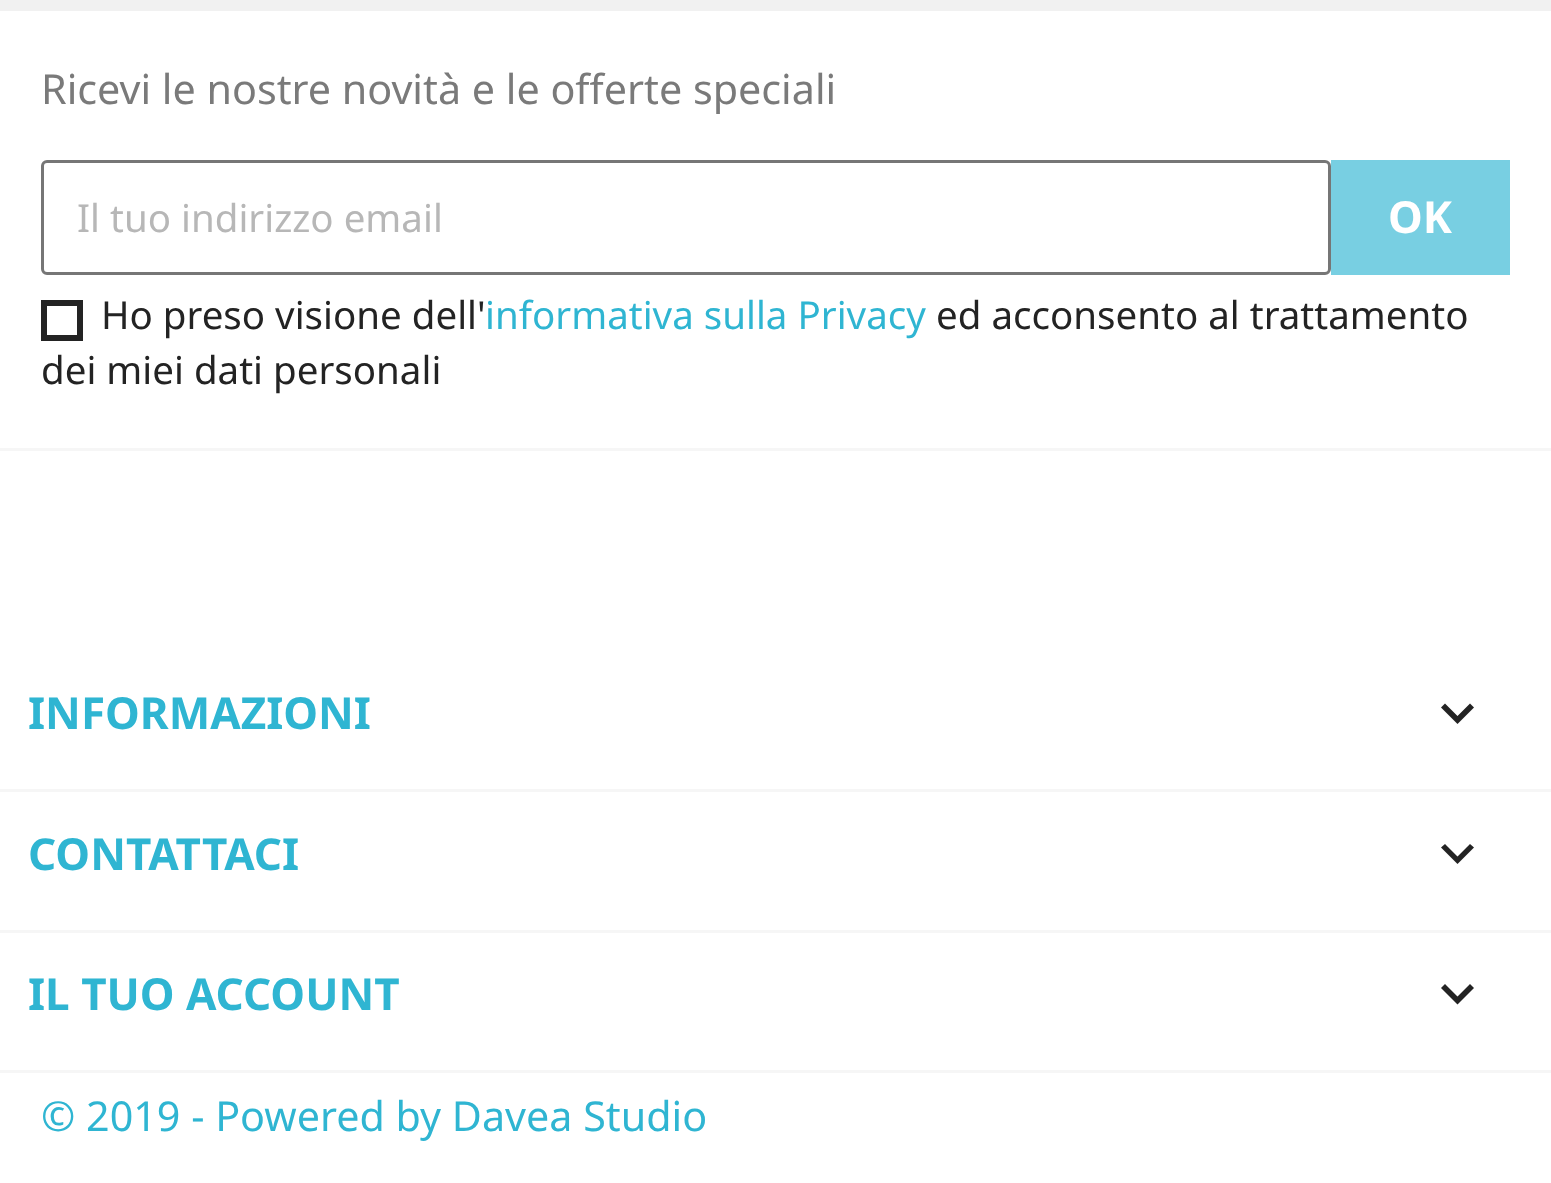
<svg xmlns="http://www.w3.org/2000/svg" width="1551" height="1183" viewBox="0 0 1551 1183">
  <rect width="100%" height="100%" fill="#fff"/>
  <path d="M0 0h1551v11H0z" fill="#f1f1f1"/>
  <path d="M0 448h1551v3H0z" fill="#f6f6f6"/>
  <rect x="42.5" y="161.5" width="1287" height="112" rx="4.5" fill="none" stroke="#767676" stroke-width="3"/>
  <path d="M1331 160h179v115H1331z" fill="#78cfe2"/>
  <path d="M44 303h36v35H44z" fill="none" stroke="#232323" stroke-width="6"/>
  <path d="M0 789h1551v3H0z" fill="#f6f6f6"/>
  <path d="M1445 703.5L1457.5 716L1470 703.5L1474 707.5L1457.5 724L1441 707.5Z" fill="#232323"/>
  <path d="M0 930h1551v3H0z" fill="#f6f6f6"/>
  <path d="M1445 844L1457.5 856.5L1470 844L1474 847.5L1457.5 864L1441 847.5Z" fill="#232323"/>
  <path d="M0 1070h1551v3H0z" fill="#f6f6f6"/>
  <path d="M1445 984L1457.5 996.5L1470 984L1474 988L1457.5 1004.5L1441 988Z" fill="#232323"/>
  <text x="41" y="104" font-family="Noto Sans" font-size="41.25" fill="#7a7a7a">Ricevi le nostre novità e le offerte speciali</text>
  <text x="77" y="232" font-family="Noto Sans" font-size="38.5" fill="#b7b7b7">Il tuo indirizzo email</text>
  <text x="1388" y="233" font-family="Noto Sans" font-size="44" font-weight="bold" fill="#fff">OK</text>
  <text x="101" y="329" font-family="Noto Sans" font-size="38.5" fill="#232323">Ho preso visione dell'</text>
  <text x="485" y="329" font-family="Noto Sans" font-size="38.5" fill="#2fb5d2">informativa sulla Privacy</text>
  <g font-family="Noto Sans" font-size="38.5" fill="#232323">
    <text x="936" y="329">ed acconsento al trattamento</text>
    <text x="41" y="384">dei miei dati personali</text>
  </g>
  <g font-family="Noto Sans" font-size="44" font-weight="bold" fill="#2fb5d2">
    <text x="28" y="729">INFORMAZIONI</text>
    <text x="28" y="870">CONTATTACI</text>
    <text x="28" y="1010">IL TUO ACCOUNT</text>
  </g>
  <text x="41" y="1131" font-family="Noto Sans" font-size="41.25" fill="#2fb5d2">© 2019 - Powered by Davea Studio</text>
</svg>
